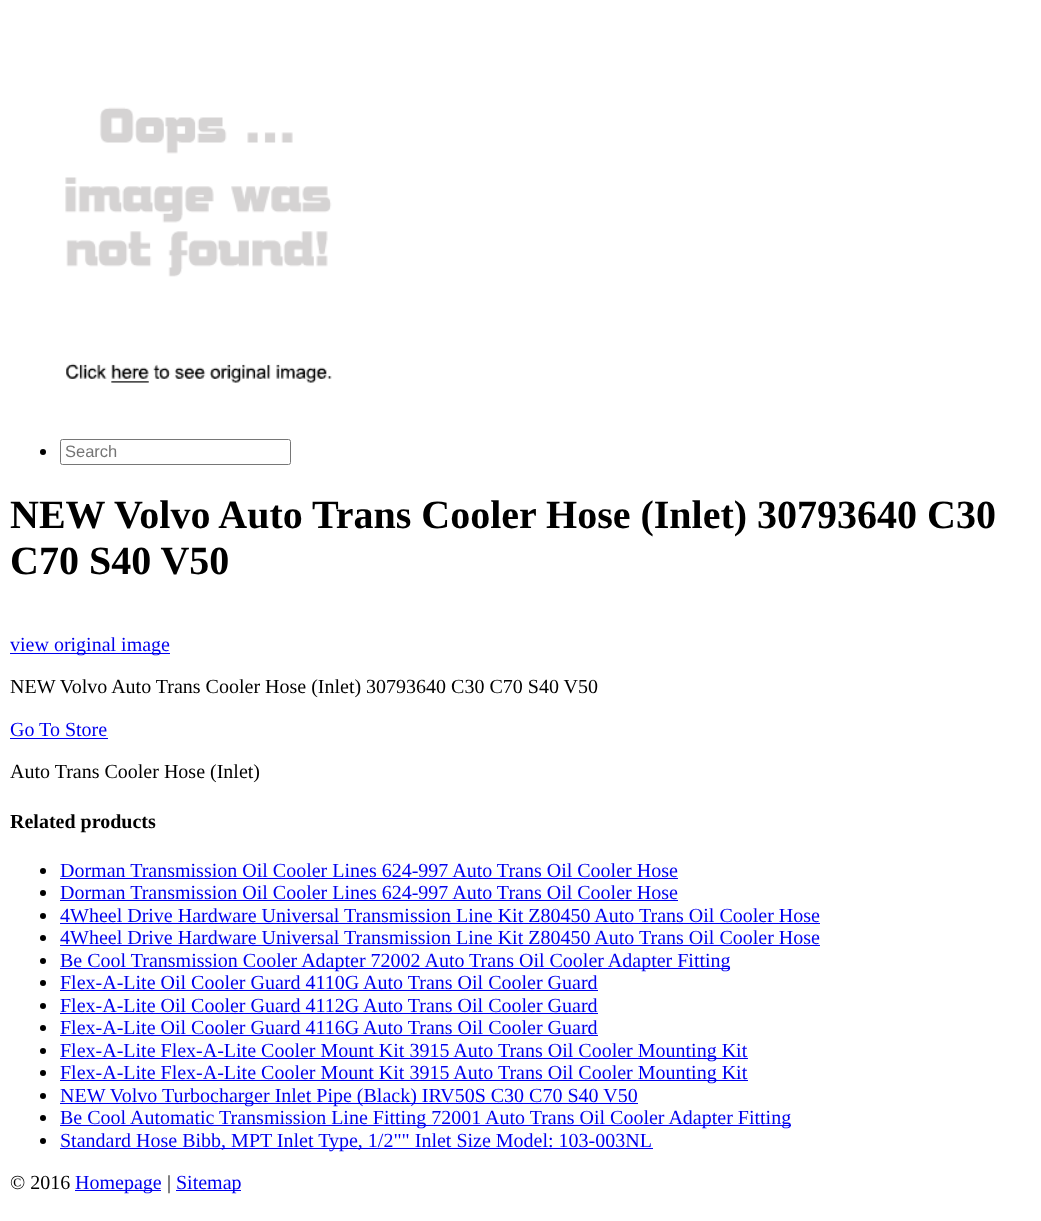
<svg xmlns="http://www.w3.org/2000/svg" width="1041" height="1221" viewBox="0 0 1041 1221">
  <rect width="100%" height="100%" fill="#fff"/>
  <image x="65" y="107" width="267" height="276" href="img/1.png"/>
  <circle cx="43" cy="452" r="3" fill="#000"/>
  <rect x="60.5" y="439.5" width="230" height="25" rx="2" fill="none" stroke="#767676"/>
  <path d="M10 653h160v1H10z" fill="#00e"/>
  <path d="M10 738h98v1H10z" fill="#00e"/>
  <circle cx="43" cy="871" r="3" fill="#000"/>
  <path d="M60 878h618v1H60z" fill="#00e"/>
  <circle cx="43" cy="893" r="3" fill="#000"/>
  <path d="M60 900h618v1H60z" fill="#00e"/>
  <circle cx="43" cy="916" r="3" fill="#000"/>
  <path d="M60 923h760v1H60z" fill="#00e"/>
  <circle cx="43" cy="938" r="3" fill="#000"/>
  <path d="M60 945h760v1H60z" fill="#00e"/>
  <circle cx="43" cy="961" r="3" fill="#000"/>
  <path d="M60 968h670v1H60z" fill="#00e"/>
  <circle cx="43" cy="983" r="3" fill="#000"/>
  <path d="M60 990h538v1H60z" fill="#00e"/>
  <circle cx="43" cy="1006" r="3" fill="#000"/>
  <path d="M60 1013h538v1H60z" fill="#00e"/>
  <circle cx="43" cy="1028" r="3" fill="#000"/>
  <path d="M60 1035h538v1H60z" fill="#00e"/>
  <circle cx="43" cy="1051" r="3" fill="#000"/>
  <path d="M60 1058h688v1H60z" fill="#00e"/>
  <circle cx="43" cy="1073" r="3" fill="#000"/>
  <path d="M60 1080h688v1H60z" fill="#00e"/>
  <circle cx="43" cy="1096" r="3" fill="#000"/>
  <path d="M60 1103h578v1H60z" fill="#00e"/>
  <circle cx="43" cy="1118" r="3" fill="#000"/>
  <path d="M60 1125h731v1H60z" fill="#00e"/>
  <circle cx="43" cy="1141" r="3" fill="#000"/>
  <path d="M60 1148h593v1H60z" fill="#00e"/>
  <path d="M75 1190h86v1H75z" fill="#00e"/>
  <path d="M176 1190h65v1H176z" fill="#00e"/>
  <text x="65" y="457" font-family="Liberation Sans" font-size="16.5" fill="#757575">Search</text>
  <g font-family="Liberation Serif" font-size="40" font-weight="bold" fill="#000">
    <text x="10" y="528">NEW Volvo Auto Trans Cooler Hose (Inlet) 30793640 C30</text>
    <text x="10" y="574">C70 S40 V50</text>
  </g>
  <text x="10" y="651" font-family="Liberation Serif" font-size="20" fill="#00e">view original image</text>
  <text x="10" y="693" font-family="Liberation Serif" font-size="20" fill="#000">NEW Volvo Auto Trans Cooler Hose (Inlet) 30793640 C30 C70 S40 V50</text>
  <text x="10" y="736" font-family="Liberation Serif" font-size="20" fill="#00e">Go To Store</text>
  <text x="10" y="778" font-family="Liberation Serif" font-size="20" fill="#000">Auto Trans Cooler Hose (Inlet)</text>
  <text x="10" y="828" font-family="Liberation Serif" font-size="20" font-weight="bold" fill="#000">Related products</text>
  <g font-family="Liberation Serif" font-size="20" fill="#00e">
    <text x="60" y="877">Dorman Transmission Oil Cooler Lines 624-997 Auto Trans Oil Cooler Hose</text>
    <text x="60" y="899">Dorman Transmission Oil Cooler Lines 624-997 Auto Trans Oil Cooler Hose</text>
    <text x="60" y="922">4Wheel Drive Hardware Universal Transmission Line Kit Z80450 Auto Trans Oil Cooler Hose</text>
    <text x="60" y="944">4Wheel Drive Hardware Universal Transmission Line Kit Z80450 Auto Trans Oil Cooler Hose</text>
    <text x="60" y="967">Be Cool Transmission Cooler Adapter 72002 Auto Trans Oil Cooler Adapter Fitting</text>
    <text x="60" y="989">Flex-A-Lite Oil Cooler Guard 4110G Auto Trans Oil Cooler Guard</text>
    <text x="60" y="1012">Flex-A-Lite Oil Cooler Guard 4112G Auto Trans Oil Cooler Guard</text>
    <text x="60" y="1034">Flex-A-Lite Oil Cooler Guard 4116G Auto Trans Oil Cooler Guard</text>
    <text x="60" y="1057">Flex-A-Lite Flex-A-Lite Cooler Mount Kit 3915 Auto Trans Oil Cooler Mounting Kit</text>
    <text x="60" y="1079">Flex-A-Lite Flex-A-Lite Cooler Mount Kit 3915 Auto Trans Oil Cooler Mounting Kit</text>
    <text x="60" y="1102">NEW Volvo Turbocharger Inlet Pipe (Black) IRV50S C30 C70 S40 V50</text>
    <text x="60" y="1124">Be Cool Automatic Transmission Line Fitting 72001 Auto Trans Oil Cooler Adapter Fitting</text>
    <text x="60" y="1147">Standard Hose Bibb, MPT Inlet Type, 1/2"" Inlet Size Model: 103-003NL</text>
  </g>
  <text x="10" y="1189" font-family="Liberation Serif" font-size="20" fill="#000">© 2016</text>
  <text x="75" y="1189" font-family="Liberation Serif" font-size="20" fill="#00e">Homepage</text>
  <text x="167" y="1189" font-family="Liberation Serif" font-size="20" fill="#000">|</text>
  <text x="176" y="1189" font-family="Liberation Serif" font-size="20" fill="#00e">Sitemap</text>
</svg>
